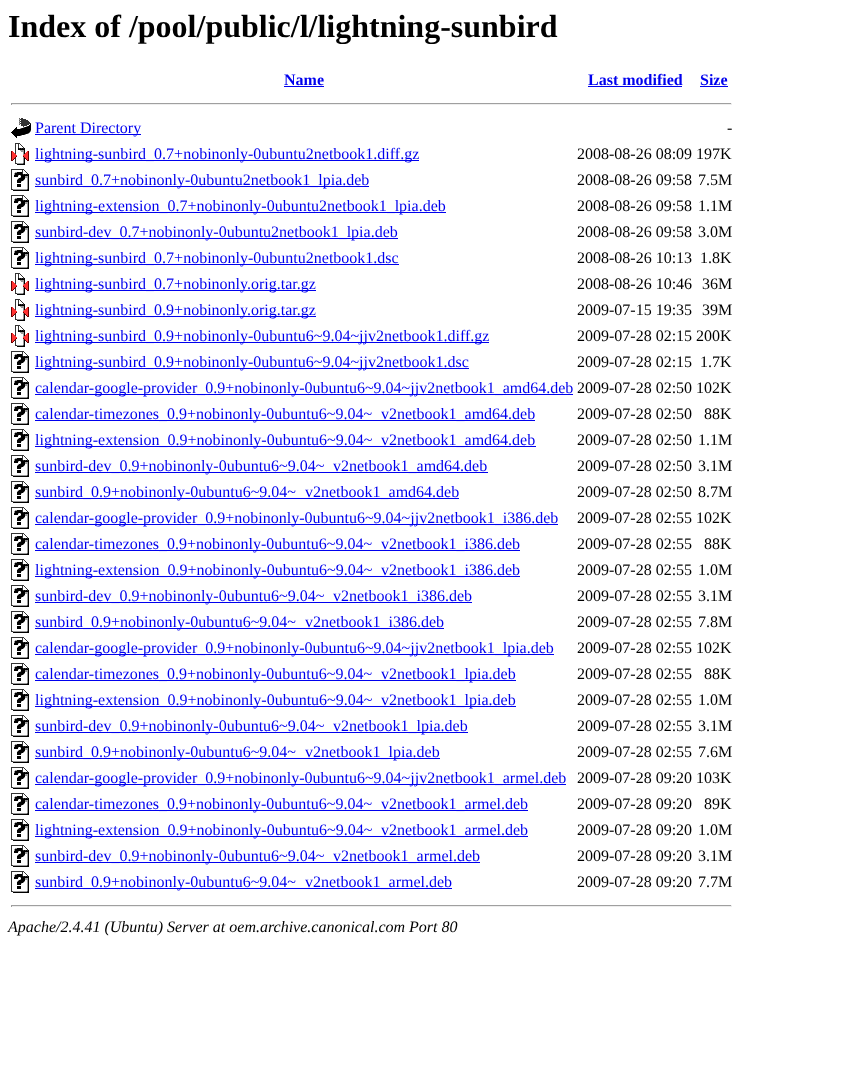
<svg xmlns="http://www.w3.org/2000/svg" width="866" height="1084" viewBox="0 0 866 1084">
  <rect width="100%" height="100%" fill="#fff"/>
  <path d="M284 86h40v1H284z" fill="#00e"/>
  <path d="M588 86h94v1H588z" fill="#00e"/>
  <path d="M700 86h28v1H700z" fill="#00e"/>
  <path d="M11 103h721v1H11z" fill="#9f9f9f"/>
  <path d="M731 103h1v2H731z" fill="#eee"/>
  <path d="M11 104h721v1H11z" fill="#eee"/>
  <path d="M11 103h1v2H11z" fill="#9f9f9f"/>
  <image x="11" y="118" width="20" height="20" href="img/1.png"/>
  <path d="M35 134h106v1H35z" fill="#00e"/>
  <image x="11" y="143" width="18" height="22" href="img/2.png"/>
  <path d="M35 160h384v1H35z" fill="#00e"/>
  <image x="11" y="169" width="18" height="22" href="img/3.png"/>
  <path d="M35 186h334v1H35z" fill="#00e"/>
  <image x="11" y="195" width="18" height="22" href="img/3.png"/>
  <path d="M35 212h411v1H35z" fill="#00e"/>
  <image x="11" y="221" width="18" height="22" href="img/3.png"/>
  <path d="M35 238h363v1H35z" fill="#00e"/>
  <image x="11" y="247" width="18" height="22" href="img/3.png"/>
  <path d="M35 264h364v1H35z" fill="#00e"/>
  <image x="11" y="273" width="18" height="22" href="img/2.png"/>
  <path d="M35 290h281v1H35z" fill="#00e"/>
  <image x="11" y="299" width="18" height="22" href="img/2.png"/>
  <path d="M35 316h281v1H35z" fill="#00e"/>
  <image x="11" y="325" width="18" height="22" href="img/2.png"/>
  <path d="M35 342h454v1H35z" fill="#00e"/>
  <image x="11" y="351" width="18" height="22" href="img/3.png"/>
  <path d="M35 368h434v1H35z" fill="#00e"/>
  <image x="11" y="377" width="18" height="22" href="img/3.png"/>
  <path d="M35 394h538v1H35z" fill="#00e"/>
  <image x="11" y="403" width="18" height="22" href="img/3.png"/>
  <path d="M35 420h500v1H35z" fill="#00e"/>
  <image x="11" y="429" width="18" height="22" href="img/3.png"/>
  <path d="M35 446h501v1H35z" fill="#00e"/>
  <image x="11" y="455" width="18" height="22" href="img/3.png"/>
  <path d="M35 472h453v1H35z" fill="#00e"/>
  <image x="11" y="481" width="18" height="22" href="img/3.png"/>
  <path d="M35 498h424v1H35z" fill="#00e"/>
  <image x="11" y="507" width="18" height="22" href="img/3.png"/>
  <path d="M35 524h523v1H35z" fill="#00e"/>
  <image x="11" y="533" width="18" height="22" href="img/3.png"/>
  <path d="M35 550h485v1H35z" fill="#00e"/>
  <image x="11" y="559" width="18" height="22" href="img/3.png"/>
  <path d="M35 576h485v1H35z" fill="#00e"/>
  <image x="11" y="585" width="18" height="22" href="img/3.png"/>
  <path d="M35 602h437v1H35z" fill="#00e"/>
  <image x="11" y="611" width="18" height="22" href="img/3.png"/>
  <path d="M35 628h409v1H35z" fill="#00e"/>
  <image x="11" y="637" width="18" height="22" href="img/3.png"/>
  <path d="M35 654h519v1H35z" fill="#00e"/>
  <image x="11" y="663" width="18" height="22" href="img/3.png"/>
  <path d="M35 680h481v1H35z" fill="#00e"/>
  <image x="11" y="689" width="18" height="22" href="img/3.png"/>
  <path d="M35 706h481v1H35z" fill="#00e"/>
  <image x="11" y="715" width="18" height="22" href="img/3.png"/>
  <path d="M35 732h433v1H35z" fill="#00e"/>
  <image x="11" y="741" width="18" height="22" href="img/3.png"/>
  <path d="M35 758h405v1H35z" fill="#00e"/>
  <image x="11" y="767" width="18" height="22" href="img/3.png"/>
  <path d="M35 784h531v1H35z" fill="#00e"/>
  <image x="11" y="793" width="18" height="22" href="img/3.png"/>
  <path d="M35 810h493v1H35z" fill="#00e"/>
  <image x="11" y="819" width="18" height="22" href="img/3.png"/>
  <path d="M35 836h493v1H35z" fill="#00e"/>
  <image x="11" y="845" width="18" height="22" href="img/3.png"/>
  <path d="M35 862h445v1H35z" fill="#00e"/>
  <image x="11" y="871" width="18" height="22" href="img/3.png"/>
  <path d="M35 888h417v1H35z" fill="#00e"/>
  <path d="M11 905h721v1H11z" fill="#9f9f9f"/>
  <path d="M731 905h1v2H731z" fill="#eee"/>
  <path d="M11 906h721v1H11z" fill="#eee"/>
  <path d="M11 905h1v2H11z" fill="#9f9f9f"/>
  <text x="8" y="37" font-family="Liberation Serif" font-size="32" font-weight="bold" fill="#000">Index of /pool/public/l/lightning-sunbird</text>
  <g font-family="Liberation Serif" font-size="16" font-weight="bold" fill="#00e">
    <text x="284" y="85">Name</text>
    <text x="588" y="85">Last modified</text>
    <text x="700" y="85">Size</text>
  </g>
  <text x="35" y="133" font-family="Liberation Serif" font-size="16" fill="#00e">Parent Directory</text>
  <text x="727" y="133" font-family="Liberation Serif" font-size="16" fill="#000">-</text>
  <text x="35" y="159" font-family="Liberation Serif" font-size="16" fill="#00e">lightning-sunbird_0.7+nobinonly-0ubuntu2netbook1.diff.gz</text>
  <text x="577" y="159" font-family="Liberation Serif" font-size="16" fill="#000">2008-08-26 08:09 197K</text>
  <text x="35" y="185" font-family="Liberation Serif" font-size="16" fill="#00e">sunbird_0.7+nobinonly-0ubuntu2netbook1_lpia.deb</text>
  <g font-family="Liberation Serif" font-size="16" fill="#000">
    <text x="577" y="185">2008-08-26 09:58</text>
    <text x="698" y="185">7.5M</text>
  </g>
  <text x="35" y="211" font-family="Liberation Serif" font-size="16" fill="#00e">lightning-extension_0.7+nobinonly-0ubuntu2netbook1_lpia.deb</text>
  <g font-family="Liberation Serif" font-size="16" fill="#000">
    <text x="577" y="211">2008-08-26 09:58</text>
    <text x="698" y="211">1.1M</text>
  </g>
  <text x="35" y="237" font-family="Liberation Serif" font-size="16" fill="#00e">sunbird-dev_0.7+nobinonly-0ubuntu2netbook1_lpia.deb</text>
  <g font-family="Liberation Serif" font-size="16" fill="#000">
    <text x="577" y="237">2008-08-26 09:58</text>
    <text x="698" y="237">3.0M</text>
  </g>
  <text x="35" y="263" font-family="Liberation Serif" font-size="16" fill="#00e">lightning-sunbird_0.7+nobinonly-0ubuntu2netbook1.dsc</text>
  <g font-family="Liberation Serif" font-size="16" fill="#000">
    <text x="577" y="263">2008-08-26 10:13</text>
    <text x="700" y="263">1.8K</text>
  </g>
  <text x="35" y="289" font-family="Liberation Serif" font-size="16" fill="#00e">lightning-sunbird_0.7+nobinonly.orig.tar.gz</text>
  <g font-family="Liberation Serif" font-size="16" fill="#000">
    <text x="577" y="289">2008-08-26 10:46</text>
    <text x="702" y="289">36M</text>
  </g>
  <text x="35" y="315" font-family="Liberation Serif" font-size="16" fill="#00e">lightning-sunbird_0.9+nobinonly.orig.tar.gz</text>
  <g font-family="Liberation Serif" font-size="16" fill="#000">
    <text x="577" y="315">2009-07-15 19:35</text>
    <text x="702" y="315">39M</text>
  </g>
  <text x="35" y="341" font-family="Liberation Serif" font-size="16" fill="#00e">lightning-sunbird_0.9+nobinonly-0ubuntu6~9.04~jjv2netbook1.diff.gz</text>
  <text x="577" y="341" font-family="Liberation Serif" font-size="16" fill="#000">2009-07-28 02:15 200K</text>
  <text x="35" y="367" font-family="Liberation Serif" font-size="16" fill="#00e">lightning-sunbird_0.9+nobinonly-0ubuntu6~9.04~jjv2netbook1.dsc</text>
  <g font-family="Liberation Serif" font-size="16" fill="#000">
    <text x="577" y="367">2009-07-28 02:15</text>
    <text x="700" y="367">1.7K</text>
  </g>
  <text x="35" y="393" font-family="Liberation Serif" font-size="16" fill="#00e">calendar-google-provider_0.9+nobinonly-0ubuntu6~9.04~jjv2netbook1_amd64.deb</text>
  <text x="577" y="393" font-family="Liberation Serif" font-size="16" fill="#000">2009-07-28 02:50 102K</text>
  <g font-family="Liberation Serif" font-size="16" fill="#00e">
    <text x="35" y="419">calendar-timezones_0.9+nobinonly-0ubuntu6~9.04~</text>
    <text x="381" y="419">v2netbook1_amd64.deb</text>
  </g>
  <g font-family="Liberation Serif" font-size="16" fill="#000">
    <text x="577" y="419">2009-07-28 02:50</text>
    <text x="704" y="419">88K</text>
  </g>
  <g font-family="Liberation Serif" font-size="16" fill="#00e">
    <text x="35" y="445">lightning-extension_0.9+nobinonly-0ubuntu6~9.04~</text>
    <text x="381" y="445">v2netbook1_amd64.deb</text>
  </g>
  <g font-family="Liberation Serif" font-size="16" fill="#000">
    <text x="577" y="445">2009-07-28 02:50</text>
    <text x="698" y="445">1.1M</text>
  </g>
  <g font-family="Liberation Serif" font-size="16" fill="#00e">
    <text x="35" y="471">sunbird-dev_0.9+nobinonly-0ubuntu6~9.04~</text>
    <text x="333" y="471">v2netbook1_amd64.deb</text>
  </g>
  <g font-family="Liberation Serif" font-size="16" fill="#000">
    <text x="577" y="471">2009-07-28 02:50</text>
    <text x="698" y="471">3.1M</text>
  </g>
  <g font-family="Liberation Serif" font-size="16" fill="#00e">
    <text x="35" y="497">sunbird_0.9+nobinonly-0ubuntu6~9.04~</text>
    <text x="305" y="497">v2netbook1_amd64.deb</text>
  </g>
  <g font-family="Liberation Serif" font-size="16" fill="#000">
    <text x="577" y="497">2009-07-28 02:50</text>
    <text x="698" y="497">8.7M</text>
  </g>
  <text x="35" y="523" font-family="Liberation Serif" font-size="16" fill="#00e">calendar-google-provider_0.9+nobinonly-0ubuntu6~9.04~jjv2netbook1_i386.deb</text>
  <text x="577" y="523" font-family="Liberation Serif" font-size="16" fill="#000">2009-07-28 02:55 102K</text>
  <g font-family="Liberation Serif" font-size="16" fill="#00e">
    <text x="35" y="549">calendar-timezones_0.9+nobinonly-0ubuntu6~9.04~</text>
    <text x="381" y="549">v2netbook1_i386.deb</text>
  </g>
  <g font-family="Liberation Serif" font-size="16" fill="#000">
    <text x="577" y="549">2009-07-28 02:55</text>
    <text x="704" y="549">88K</text>
  </g>
  <g font-family="Liberation Serif" font-size="16" fill="#00e">
    <text x="35" y="575">lightning-extension_0.9+nobinonly-0ubuntu6~9.04~</text>
    <text x="381" y="575">v2netbook1_i386.deb</text>
  </g>
  <g font-family="Liberation Serif" font-size="16" fill="#000">
    <text x="577" y="575">2009-07-28 02:55</text>
    <text x="698" y="575">1.0M</text>
  </g>
  <g font-family="Liberation Serif" font-size="16" fill="#00e">
    <text x="35" y="601">sunbird-dev_0.9+nobinonly-0ubuntu6~9.04~</text>
    <text x="333" y="601">v2netbook1_i386.deb</text>
  </g>
  <g font-family="Liberation Serif" font-size="16" fill="#000">
    <text x="577" y="601">2009-07-28 02:55</text>
    <text x="698" y="601">3.1M</text>
  </g>
  <g font-family="Liberation Serif" font-size="16" fill="#00e">
    <text x="35" y="627">sunbird_0.9+nobinonly-0ubuntu6~9.04~</text>
    <text x="305" y="627">v2netbook1_i386.deb</text>
  </g>
  <g font-family="Liberation Serif" font-size="16" fill="#000">
    <text x="577" y="627">2009-07-28 02:55</text>
    <text x="698" y="627">7.8M</text>
  </g>
  <text x="35" y="653" font-family="Liberation Serif" font-size="16" fill="#00e">calendar-google-provider_0.9+nobinonly-0ubuntu6~9.04~jjv2netbook1_lpia.deb</text>
  <text x="577" y="653" font-family="Liberation Serif" font-size="16" fill="#000">2009-07-28 02:55 102K</text>
  <g font-family="Liberation Serif" font-size="16" fill="#00e">
    <text x="35" y="679">calendar-timezones_0.9+nobinonly-0ubuntu6~9.04~</text>
    <text x="381" y="679">v2netbook1_lpia.deb</text>
  </g>
  <g font-family="Liberation Serif" font-size="16" fill="#000">
    <text x="577" y="679">2009-07-28 02:55</text>
    <text x="704" y="679">88K</text>
  </g>
  <g font-family="Liberation Serif" font-size="16" fill="#00e">
    <text x="35" y="705">lightning-extension_0.9+nobinonly-0ubuntu6~9.04~</text>
    <text x="381" y="705">v2netbook1_lpia.deb</text>
  </g>
  <g font-family="Liberation Serif" font-size="16" fill="#000">
    <text x="577" y="705">2009-07-28 02:55</text>
    <text x="698" y="705">1.0M</text>
  </g>
  <g font-family="Liberation Serif" font-size="16" fill="#00e">
    <text x="35" y="731">sunbird-dev_0.9+nobinonly-0ubuntu6~9.04~</text>
    <text x="333" y="731">v2netbook1_lpia.deb</text>
  </g>
  <g font-family="Liberation Serif" font-size="16" fill="#000">
    <text x="577" y="731">2009-07-28 02:55</text>
    <text x="698" y="731">3.1M</text>
  </g>
  <g font-family="Liberation Serif" font-size="16" fill="#00e">
    <text x="35" y="757">sunbird_0.9+nobinonly-0ubuntu6~9.04~</text>
    <text x="305" y="757">v2netbook1_lpia.deb</text>
  </g>
  <g font-family="Liberation Serif" font-size="16" fill="#000">
    <text x="577" y="757">2009-07-28 02:55</text>
    <text x="698" y="757">7.6M</text>
  </g>
  <text x="35" y="783" font-family="Liberation Serif" font-size="16" fill="#00e">calendar-google-provider_0.9+nobinonly-0ubuntu6~9.04~jjv2netbook1_armel.deb</text>
  <text x="577" y="783" font-family="Liberation Serif" font-size="16" fill="#000">2009-07-28 09:20 103K</text>
  <g font-family="Liberation Serif" font-size="16" fill="#00e">
    <text x="35" y="809">calendar-timezones_0.9+nobinonly-0ubuntu6~9.04~</text>
    <text x="381" y="809">v2netbook1_armel.deb</text>
  </g>
  <g font-family="Liberation Serif" font-size="16" fill="#000">
    <text x="577" y="809">2009-07-28 09:20</text>
    <text x="704" y="809">89K</text>
  </g>
  <g font-family="Liberation Serif" font-size="16" fill="#00e">
    <text x="35" y="835">lightning-extension_0.9+nobinonly-0ubuntu6~9.04~</text>
    <text x="381" y="835">v2netbook1_armel.deb</text>
  </g>
  <g font-family="Liberation Serif" font-size="16" fill="#000">
    <text x="577" y="835">2009-07-28 09:20</text>
    <text x="698" y="835">1.0M</text>
  </g>
  <g font-family="Liberation Serif" font-size="16" fill="#00e">
    <text x="35" y="861">sunbird-dev_0.9+nobinonly-0ubuntu6~9.04~</text>
    <text x="333" y="861">v2netbook1_armel.deb</text>
  </g>
  <g font-family="Liberation Serif" font-size="16" fill="#000">
    <text x="577" y="861">2009-07-28 09:20</text>
    <text x="698" y="861">3.1M</text>
  </g>
  <g font-family="Liberation Serif" font-size="16" fill="#00e">
    <text x="35" y="887">sunbird_0.9+nobinonly-0ubuntu6~9.04~</text>
    <text x="305" y="887">v2netbook1_armel.deb</text>
  </g>
  <g font-family="Liberation Serif" font-size="16" fill="#000">
    <text x="577" y="887">2009-07-28 09:20</text>
    <text x="698" y="887">7.7M</text>
  </g>
  <text x="8" y="932" font-family="Liberation Serif" font-size="16" font-style="italic" fill="#000">Apache/2.4.41 (Ubuntu) Server at oem.archive.canonical.com Port 80</text>
</svg>
